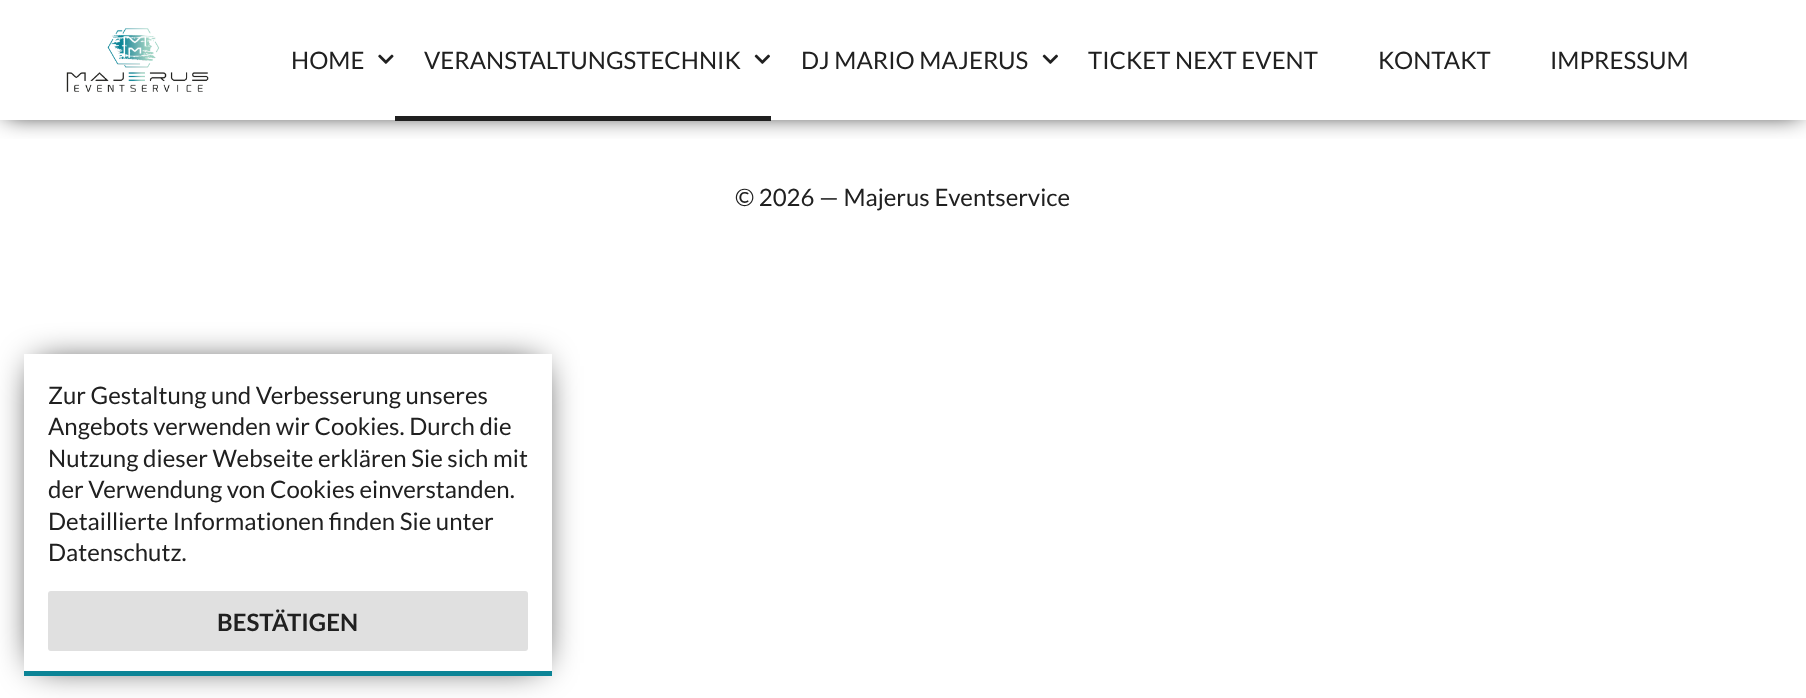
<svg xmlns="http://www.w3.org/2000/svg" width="1806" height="698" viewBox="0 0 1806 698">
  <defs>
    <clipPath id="clip1"><path d="M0 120h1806v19H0z"/></clipPath>
    <clipPath id="clip2"><path d="M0 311H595V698H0ZM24 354H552V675H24Z" clip-rule="evenodd"/></clipPath>
  </defs>
  <rect width="100%" height="100%" fill="#fff"/>
  <g clip-path="url(#clip1)">
    <path d="M6 6h1794v108H6z" fill="#000" filter="blur(12px)"/>
  </g>
  <image x="66" y="28" width="143" height="64" href="img/1.png"/>
  <image x="378" y="54" width="16" height="10" href="img/2.png"/>
  <image x="754" y="54" width="16" height="10" href="img/3.png"/>
  <path d="M395 116h376v5H395z" fill="#202020"/>
  <image x="1042" y="54" width="16" height="10" href="img/3.png"/>
  <g clip-path="url(#clip2)">
    <path d="M36 366h504v297H36z" fill="#000" filter="blur(18px)"/>
  </g>
  <rect x="48" y="591" width="480" height="60" rx="3" fill="#e0e0e0"/>
  <path d="M24 671h528v5H24z" fill="#0b8496"/>
  <g font-family="Lato" font-size="24" fill="#202020">
    <text x="291" y="69">HOME</text>
    <text x="424" y="69">VERANSTALTUNGSTECHNIK</text>
    <text x="801" y="69">DJ MARIO MAJERUS</text>
    <text x="1088" y="69">TICKET NEXT EVENT</text>
    <text x="1378" y="69">KONTAKT</text>
    <text x="1550" y="69">IMPRESSUM</text>
    <text x="735" y="206">© 2026 — Majerus Eventservice</text>
    <text x="48" y="404">Zur Gestaltung und Verbesserung unseres</text>
    <text x="48" y="435">Angebots verwenden wir Cookies. Durch die</text>
    <text x="48" y="467">Nutzung dieser Webseite erklären Sie sich mit</text>
    <text x="48" y="498">der Verwendung von Cookies einverstanden.</text>
    <text x="48" y="530">Detaillierte Informationen finden Sie unter</text>
    <text x="48" y="561">Datenschutz.</text>
  </g>
  <text x="217" y="631" font-family="Lato" font-size="24" font-weight="bold" fill="#202020">BESTÄTIGEN</text>
</svg>
